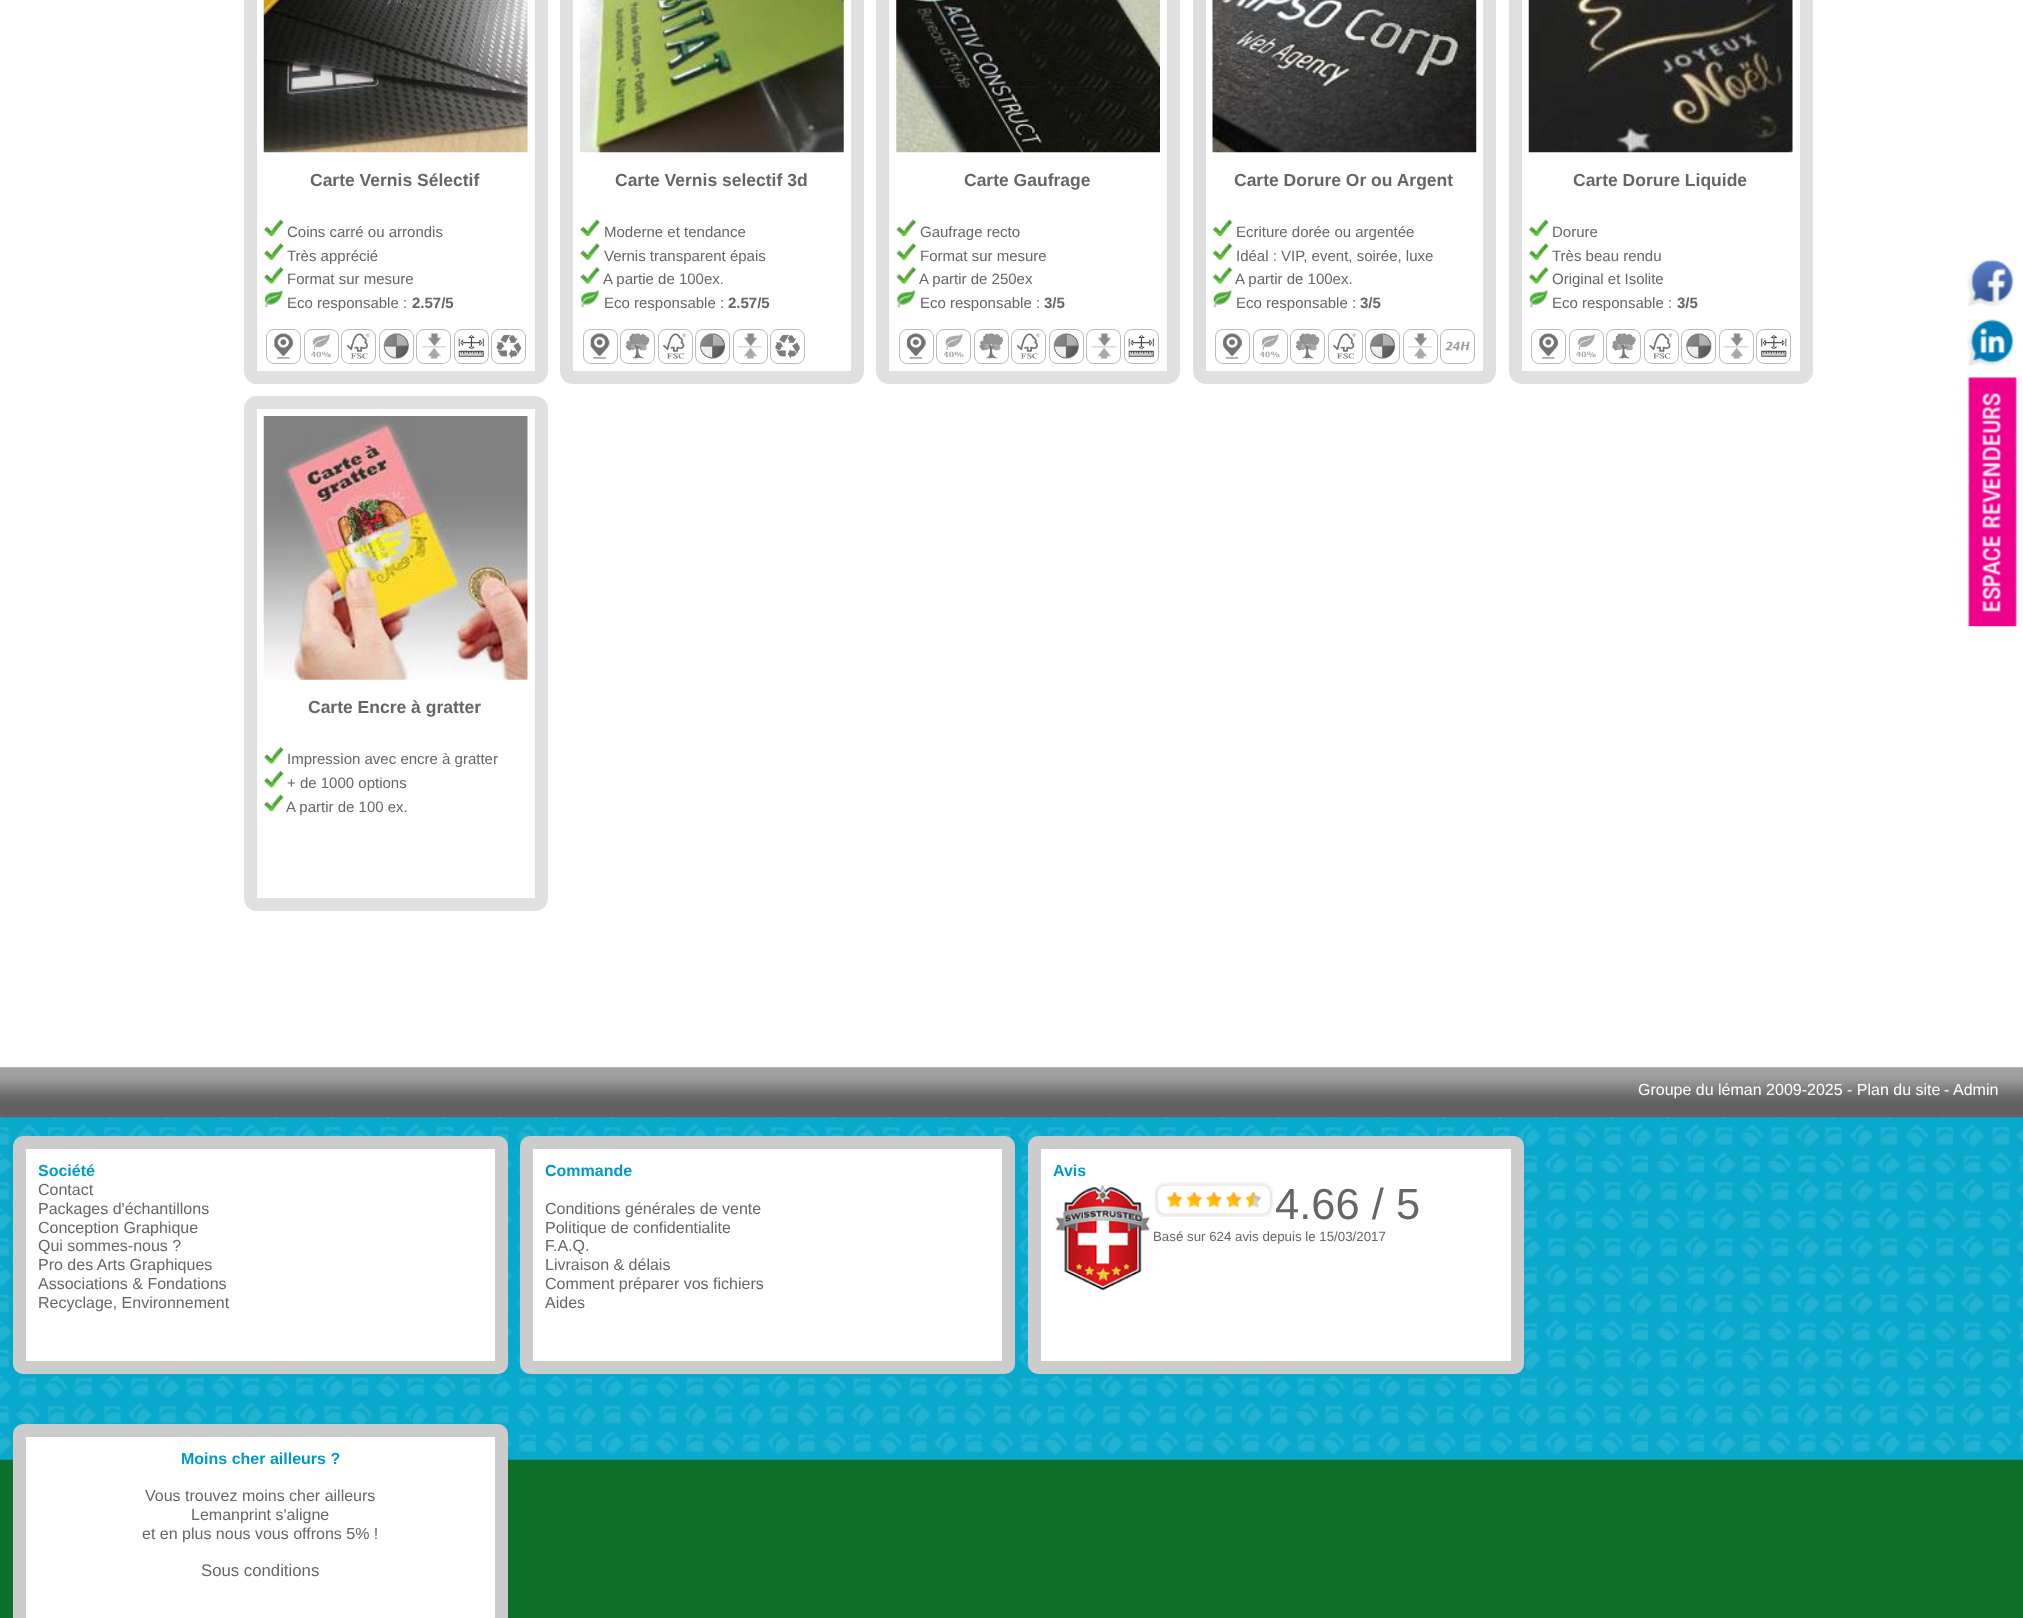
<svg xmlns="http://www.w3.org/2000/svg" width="2023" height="1618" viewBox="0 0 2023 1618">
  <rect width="100%" height="100%" fill="#fff"/>
  <rect x="250.5" y="-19.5" width="291" height="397" rx="6.5" fill="none" stroke="#e0e0e0" stroke-width="13"/>
  <image x="263" y="0" width="265" height="153" href="img/1.png"/>
  <image x="263" y="219" width="21" height="17" href="img/2.png"/>
  <image x="263" y="243" width="21" height="17" href="img/3.png"/>
  <image x="263" y="267" width="21" height="17" href="img/4.png"/>
  <image x="264" y="289" width="19" height="19" href="img/5.png"/>
  <rect x="266.5" y="329.5" width="34" height="34" rx="7.5" fill="none" stroke="#bbb"/>
  <image x="274" y="333" width="19" height="26" href="img/6.png"/>
  <rect x="304.5" y="329.5" width="34" height="34" rx="7.5" fill="none" stroke="#bbb"/>
  <image x="311" y="333" width="20" height="25" href="img/7.png"/>
  <rect x="341.5" y="329.5" width="34" height="34" rx="7.5" fill="none" stroke="#bbb"/>
  <image x="347" y="333" width="23" height="26" href="img/8.png"/>
  <rect x="379.5" y="329.5" width="34" height="34" rx="7.5" fill="none" stroke="#bbb"/>
  <image x="383" y="333" width="26" height="26" href="img/9.png"/>
  <rect x="416.5" y="329.5" width="34" height="34" rx="7.5" fill="none" stroke="#bbb"/>
  <image x="422" y="333" width="24" height="26" href="img/10.png"/>
  <rect x="454.5" y="329.5" width="34" height="34" rx="7.5" fill="none" stroke="#bbb"/>
  <image x="458" y="335" width="26" height="22" href="img/11.png"/>
  <rect x="491.5" y="329.5" width="34" height="34" rx="7.5" fill="none" stroke="#bbb"/>
  <image x="496" y="334" width="26" height="25" href="img/12.png"/>
  <rect x="566.5" y="-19.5" width="291" height="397" rx="6.5" fill="none" stroke="#e0e0e0" stroke-width="13"/>
  <image x="580" y="0" width="264" height="153" href="img/13.png"/>
  <image x="580" y="219" width="20" height="17" href="img/14.png"/>
  <image x="580" y="243" width="20" height="17" href="img/15.png"/>
  <image x="580" y="267" width="20" height="17" href="img/16.png"/>
  <image x="581" y="289" width="18" height="19" href="img/17.png"/>
  <rect x="583.5" y="329.5" width="34" height="34" rx="7.5" fill="none" stroke="#bbb"/>
  <image x="590" y="333" width="20" height="26" href="img/18.png"/>
  <rect x="620.5" y="329.5" width="34" height="34" rx="7.5" fill="none" stroke="#bbb"/>
  <image x="625" y="333" width="25" height="26" href="img/19.png"/>
  <rect x="658.5" y="329.5" width="34" height="34" rx="7.5" fill="none" stroke="#bbb"/>
  <image x="663" y="333" width="23" height="26" href="img/20.png"/>
  <rect x="695.5" y="329.5" width="34" height="34" rx="7.5" fill="none" stroke="#bbb"/>
  <image x="700" y="333" width="25" height="26" href="img/21.png"/>
  <rect x="733.5" y="329.5" width="34" height="34" rx="7.5" fill="none" stroke="#bbb"/>
  <image x="738" y="333" width="24" height="26" href="img/22.png"/>
  <rect x="770.5" y="329.5" width="34" height="34" rx="7.5" fill="none" stroke="#bbb"/>
  <image x="775" y="334" width="25" height="25" href="img/23.png"/>
  <rect x="882.5" y="-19.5" width="291" height="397" rx="6.5" fill="none" stroke="#e0e0e0" stroke-width="13"/>
  <image x="896" y="0" width="264" height="153" href="img/24.png"/>
  <image x="896" y="219" width="21" height="17" href="img/25.png"/>
  <image x="896" y="243" width="21" height="17" href="img/26.png"/>
  <image x="896" y="267" width="21" height="17" href="img/27.png"/>
  <image x="897" y="289" width="19" height="19" href="img/28.png"/>
  <rect x="899.5" y="329.5" width="34" height="34" rx="7.5" fill="none" stroke="#bbb"/>
  <image x="907" y="333" width="19" height="26" href="img/29.png"/>
  <rect x="936.5" y="329.5" width="34" height="34" rx="7.5" fill="none" stroke="#bbb"/>
  <image x="943" y="333" width="21" height="25" href="img/30.png"/>
  <rect x="974.5" y="329.5" width="34" height="34" rx="7.5" fill="none" stroke="#bbb"/>
  <image x="979" y="333" width="24" height="26" href="img/31.png"/>
  <rect x="1011.5" y="329.5" width="34" height="34" rx="7.5" fill="none" stroke="#bbb"/>
  <image x="1017" y="333" width="23" height="26" href="img/32.png"/>
  <rect x="1049.5" y="329.5" width="34" height="34" rx="7.5" fill="none" stroke="#bbb"/>
  <image x="1053" y="333" width="26" height="26" href="img/9.png"/>
  <rect x="1086.5" y="329.5" width="34" height="34" rx="7.5" fill="none" stroke="#bbb"/>
  <image x="1092" y="333" width="24" height="26" href="img/10.png"/>
  <rect x="1124.5" y="329.5" width="34" height="34" rx="7.5" fill="none" stroke="#bbb"/>
  <image x="1128" y="335" width="26" height="22" href="img/11.png"/>
  <rect x="1199.5" y="-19.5" width="290" height="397" rx="6.5" fill="none" stroke="#e0e0e0" stroke-width="13"/>
  <image x="1212" y="0" width="265" height="153" href="img/33.png"/>
  <image x="1212" y="219" width="21" height="17" href="img/34.png"/>
  <image x="1212" y="243" width="21" height="17" href="img/35.png"/>
  <image x="1212" y="267" width="21" height="17" href="img/36.png"/>
  <image x="1213" y="289" width="19" height="19" href="img/37.png"/>
  <rect x="1215.5" y="329.5" width="34" height="34" rx="7.5" fill="none" stroke="#bbb"/>
  <image x="1223" y="333" width="19" height="26" href="img/38.png"/>
  <rect x="1253.5" y="329.5" width="34" height="34" rx="7.5" fill="none" stroke="#bbb"/>
  <image x="1260" y="333" width="20" height="25" href="img/39.png"/>
  <rect x="1290.5" y="329.5" width="34" height="34" rx="7.5" fill="none" stroke="#bbb"/>
  <image x="1295" y="333" width="25" height="26" href="img/19.png"/>
  <rect x="1328.5" y="329.5" width="34" height="34" rx="7.5" fill="none" stroke="#bbb"/>
  <image x="1333" y="333" width="23" height="26" href="img/20.png"/>
  <rect x="1365.5" y="329.5" width="34" height="34" rx="7.5" fill="none" stroke="#bbb"/>
  <image x="1370" y="333" width="25" height="26" href="img/21.png"/>
  <rect x="1403.5" y="329.5" width="34" height="34" rx="7.5" fill="none" stroke="#bbb"/>
  <image x="1408" y="333" width="24" height="26" href="img/22.png"/>
  <rect x="1440.5" y="329.5" width="34" height="34" rx="7.5" fill="none" stroke="#bbb"/>
  <image x="1445" y="341" width="25" height="10" href="img/40.png"/>
  <rect x="1515.5" y="-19.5" width="291" height="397" rx="6.5" fill="none" stroke="#e0e0e0" stroke-width="13"/>
  <image x="1528" y="0" width="265" height="153" href="img/41.png"/>
  <image x="1528" y="219" width="21" height="17" href="img/2.png"/>
  <image x="1528" y="243" width="21" height="17" href="img/3.png"/>
  <image x="1528" y="267" width="21" height="17" href="img/4.png"/>
  <image x="1529" y="289" width="19" height="19" href="img/5.png"/>
  <rect x="1531.5" y="329.5" width="34" height="34" rx="7.5" fill="none" stroke="#bbb"/>
  <image x="1539" y="333" width="19" height="26" href="img/6.png"/>
  <rect x="1569.5" y="329.5" width="34" height="34" rx="7.5" fill="none" stroke="#bbb"/>
  <image x="1576" y="333" width="20" height="25" href="img/7.png"/>
  <rect x="1606.5" y="329.5" width="34" height="34" rx="7.5" fill="none" stroke="#bbb"/>
  <image x="1612" y="333" width="24" height="26" href="img/42.png"/>
  <rect x="1644.5" y="329.5" width="34" height="34" rx="7.5" fill="none" stroke="#bbb"/>
  <image x="1649" y="333" width="23" height="26" href="img/43.png"/>
  <rect x="1681.5" y="329.5" width="34" height="34" rx="7.5" fill="none" stroke="#bbb"/>
  <image x="1686" y="333" width="26" height="26" href="img/44.png"/>
  <rect x="1719.5" y="329.5" width="34" height="34" rx="7.5" fill="none" stroke="#bbb"/>
  <image x="1724" y="333" width="24" height="26" href="img/45.png"/>
  <rect x="1756.5" y="329.5" width="34" height="34" rx="7.5" fill="none" stroke="#bbb"/>
  <image x="1761" y="335" width="26" height="22" href="img/46.png"/>
  <rect x="250.5" y="402.5" width="291" height="502" rx="6.5" fill="none" stroke="#e0e0e0" stroke-width="13"/>
  <image x="263" y="416" width="265" height="264" href="img/47.png"/>
  <image x="263" y="747" width="21" height="17" href="img/4.png"/>
  <image x="263" y="770" width="21" height="18" href="img/48.png"/>
  <image x="263" y="794" width="21" height="17" href="img/2.png"/>
  <image x="1967" y="259" width="47" height="48" href="img/49.png"/>
  <image x="1967" y="319" width="47" height="48" href="img/50.png"/>
  <image x="1968" y="377" width="49" height="250" href="img/51.png"/>
  <path d="M0 1459h2023v159H0z" fill="#0d702a"/>
  <image x="0" y="1067" width="2023" height="393" href="img/52.png"/>
  <rect x="19.5" y="1142.5" width="482" height="225" rx="3.5" fill="#fff" stroke="#ccc" stroke-width="13"/>
  <rect x="526.5" y="1142.5" width="482" height="225" rx="3.5" fill="#fff" stroke="#ccc" stroke-width="13"/>
  <rect x="1034.5" y="1142.5" width="483" height="225" rx="3.5" fill="#fff" stroke="#ccc" stroke-width="13"/>
  <image x="1055" y="1185" width="95" height="106" href="img/53.png"/>
  <image x="1154" y="1182" width="120" height="35" href="img/54.png"/>
  <rect x="19.5" y="1430.5" width="482" height="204" rx="3.5" fill="#fff" stroke="#ccc" stroke-width="13"/>
  <text x="310" y="186" font-family="Liberation Sans" font-size="17.5" font-weight="bold" fill="#666">Carte Vernis Sélectif</text>
  <g font-family="Liberation Sans" font-size="15" fill="#666">
    <text x="287" y="237">Coins carré ou arrondis</text>
    <text x="287" y="261">Très apprécié</text>
    <text x="287" y="284">Format sur mesure</text>
    <text x="287" y="308">Eco responsable :</text>
  </g>
  <text x="412" y="308" font-family="Liberation Sans" font-size="15" font-weight="bold" fill="#666">2.57/5</text>
  <text x="615" y="186" font-family="Liberation Sans" font-size="17.5" font-weight="bold" fill="#666">Carte Vernis selectif 3d</text>
  <g font-family="Liberation Sans" font-size="15" fill="#666">
    <text x="604" y="237">Moderne et tendance</text>
    <text x="604" y="261">Vernis transparent épais</text>
    <text x="603" y="284">A partie de 100ex.</text>
    <text x="604" y="308">Eco responsable :</text>
  </g>
  <text x="728" y="308" font-family="Liberation Sans" font-size="15" font-weight="bold" fill="#666">2.57/5</text>
  <text x="964" y="186" font-family="Liberation Sans" font-size="17.5" font-weight="bold" fill="#666">Carte Gaufrage</text>
  <g font-family="Liberation Sans" font-size="15" fill="#666">
    <text x="920" y="237">Gaufrage recto</text>
    <text x="920" y="261">Format sur mesure</text>
    <text x="919" y="284">A partir de 250ex</text>
    <text x="920" y="308">Eco responsable :</text>
  </g>
  <text x="1044" y="308" font-family="Liberation Sans" font-size="15" font-weight="bold" fill="#666">3/5</text>
  <text x="1234" y="186" font-family="Liberation Sans" font-size="17.5" font-weight="bold" fill="#666">Carte Dorure Or ou Argent</text>
  <g font-family="Liberation Sans" font-size="15" fill="#666">
    <text x="1236" y="237">Ecriture dorée ou argentée</text>
    <text x="1236" y="261">Idéal : VIP, event, soirée, luxe</text>
    <text x="1235" y="284">A partir de 100ex.</text>
    <text x="1236" y="308">Eco responsable :</text>
  </g>
  <text x="1360" y="308" font-family="Liberation Sans" font-size="15" font-weight="bold" fill="#666">3/5</text>
  <text x="1573" y="186" font-family="Liberation Sans" font-size="17.5" font-weight="bold" fill="#666">Carte Dorure Liquide</text>
  <g font-family="Liberation Sans" font-size="15" fill="#666">
    <text x="1552" y="237">Dorure</text>
    <text x="1552" y="261">Très beau rendu</text>
    <text x="1552" y="284">Original et Isolite</text>
    <text x="1552" y="308">Eco responsable :</text>
  </g>
  <text x="1677" y="308" font-family="Liberation Sans" font-size="15" font-weight="bold" fill="#666">3/5</text>
  <text x="308" y="713" font-family="Liberation Sans" font-size="17.5" font-weight="bold" fill="#666">Carte Encre à gratter</text>
  <g font-family="Liberation Sans" font-size="15" fill="#666">
    <text x="287" y="764">Impression avec encre à gratter</text>
    <text x="287" y="788">+ de 1000 options</text>
    <text x="286" y="812">A partir de 100 ex.</text>
  </g>
  <g font-family="Liberation Sans" font-size="16" fill="#fff">
    <text x="1638" y="1095">Groupe du léman 2009-2025 - Plan du site</text>
    <text x="1944" y="1095">-</text>
    <text x="1953" y="1095">Admin</text>
  </g>
  <text x="38" y="1176" font-family="Liberation Sans" font-size="16" font-weight="bold" fill="#09c">Société</text>
  <g font-family="Liberation Sans" font-size="16" fill="#666">
    <text x="38" y="1195">Contact</text>
    <text x="38" y="1214">Packages d'échantillons</text>
    <text x="38" y="1233">Conception Graphique</text>
    <text x="38" y="1251">Qui sommes-nous ?</text>
    <text x="38" y="1270">Pro des Arts Graphiques</text>
    <text x="38" y="1289">Associations &amp; Fondations</text>
    <text x="38" y="1308">Recyclage, Environnement</text>
  </g>
  <text x="545" y="1176" font-family="Liberation Sans" font-size="16" font-weight="bold" fill="#09c">Commande</text>
  <g font-family="Liberation Sans" font-size="16" fill="#666">
    <text x="545" y="1214">Conditions générales de vente</text>
    <text x="545" y="1233">Politique de confidentialite</text>
    <text x="545" y="1251">F.A.Q.</text>
    <text x="545" y="1270">Livraison &amp; délais</text>
    <text x="545" y="1289">Comment préparer vos fichiers</text>
    <text x="545" y="1308">Aides</text>
  </g>
  <text x="1053" y="1176" font-family="Liberation Sans" font-size="16" font-weight="bold" fill="#09c">Avis</text>
  <text x="1275" y="1219" font-family="Liberation Sans" font-size="43.5" fill="#666">4.66 / 5</text>
  <text x="1153" y="1241" font-family="Liberation Sans" font-size="13.3" fill="#666">Basé sur 624 avis depuis le 15/03/2017</text>
  <text x="181" y="1464" font-family="Liberation Sans" font-size="16" font-weight="bold" fill="#09c">Moins cher ailleurs ?</text>
  <g font-family="Liberation Sans" font-size="16" fill="#666">
    <text x="145" y="1501">Vous trouvez moins cher ailleurs</text>
    <text x="191" y="1520">Lemanprint s'aligne</text>
    <text x="142" y="1539">et en plus nous vous offrons 5% !</text>
  </g>
  <text x="201" y="1576" font-family="Liberation Sans" font-size="16.75" fill="#666">Sous conditions</text>
</svg>
